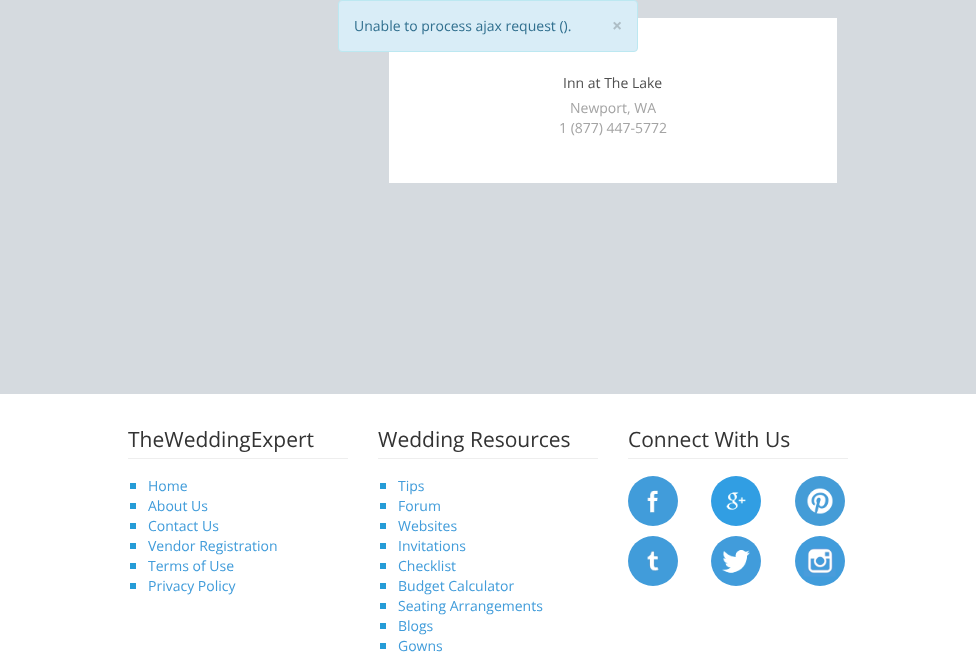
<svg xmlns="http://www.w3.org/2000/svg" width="976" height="665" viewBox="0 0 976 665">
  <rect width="100%" height="100%" fill="#d5dadf"/>
  <path d="M389 18h448v165H389z" fill="#fff"/>
  <rect x="338.5" y="0.5" width="299" height="51" rx="3.5" fill="#d9edf7" stroke="#bce8f1"/>
  <path d="M0 394h976v271H0z" fill="#fff"/>
  <path d="M128 458h220v1H128z" fill="#eee"/>
  <path d="M130 483h6v6H130z" fill="#269cd7"/>
  <path d="M130 503h6v6H130z" fill="#269cd7"/>
  <path d="M130 523h6v6H130z" fill="#269cd7"/>
  <path d="M130 543h6v6H130z" fill="#269cd7"/>
  <path d="M130 563h6v6H130z" fill="#269cd7"/>
  <path d="M130 583h6v6H130z" fill="#269cd7"/>
  <path d="M378 458h220v1H378z" fill="#eee"/>
  <path d="M380 483h6v6H380z" fill="#269cd7"/>
  <path d="M380 503h6v6H380z" fill="#269cd7"/>
  <path d="M380 523h6v6H380z" fill="#269cd7"/>
  <path d="M380 543h6v6H380z" fill="#269cd7"/>
  <path d="M380 563h6v6H380z" fill="#269cd7"/>
  <path d="M380 583h6v6H380z" fill="#269cd7"/>
  <path d="M380 603h6v6H380z" fill="#269cd7"/>
  <path d="M380 623h6v6H380z" fill="#269cd7"/>
  <path d="M380 643h6v6H380z" fill="#269cd7"/>
  <path d="M628 458h220v1H628z" fill="#eee"/>
  <image x="628" y="476" width="50" height="50" href="img/1.png"/>
  <image x="711" y="476" width="50" height="50" href="img/2.png"/>
  <image x="795" y="476" width="50" height="50" href="img/3.png"/>
  <image x="628" y="536" width="50" height="50" href="img/4.png"/>
  <image x="711" y="536" width="50" height="50" href="img/5.png"/>
  <image x="795" y="536" width="50" height="50" href="img/6.png"/>
  <text x="354" y="31" font-family="Open Sans" font-size="14" fill="#31708f">Unable to process ajax request ().</text>
  <text x="612" y="32" font-family="Open Sans" font-size="18" font-weight="bold" fill="#aebec6">×</text>
  <text x="563" y="88" font-family="Open Sans" font-size="14" fill="#4f4f4f">Inn at The Lake</text>
  <g font-family="Open Sans" font-size="14" fill="#a4a4a4">
    <text x="570" y="113">Newport, WA</text>
    <text x="559" y="133">1 (877) 447-5772</text>
  </g>
  <text x="128" y="447" font-family="Open Sans" font-size="21" fill="#333">TheWeddingExpert</text>
  <g font-family="Open Sans" font-size="14" fill="#419cda">
    <text x="148" y="491">Home</text>
    <text x="148" y="511">About Us</text>
    <text x="148" y="531">Contact Us</text>
    <text x="148" y="551">Vendor Registration</text>
    <text x="148" y="571">Terms of Use</text>
    <text x="148" y="591">Privacy Policy</text>
  </g>
  <text x="378" y="447" font-family="Open Sans" font-size="21" fill="#333">Wedding Resources</text>
  <g font-family="Open Sans" font-size="14" fill="#419cda">
    <text x="398" y="491">Tips</text>
    <text x="398" y="511">Forum</text>
    <text x="398" y="531">Websites</text>
    <text x="398" y="551">Invitations</text>
    <text x="398" y="571">Checklist</text>
    <text x="398" y="591">Budget Calculator</text>
    <text x="398" y="611">Seating Arrangements</text>
    <text x="398" y="631">Blogs</text>
    <text x="398" y="651">Gowns</text>
  </g>
  <text x="628" y="447" font-family="Open Sans" font-size="21" fill="#333">Connect With Us</text>
</svg>
